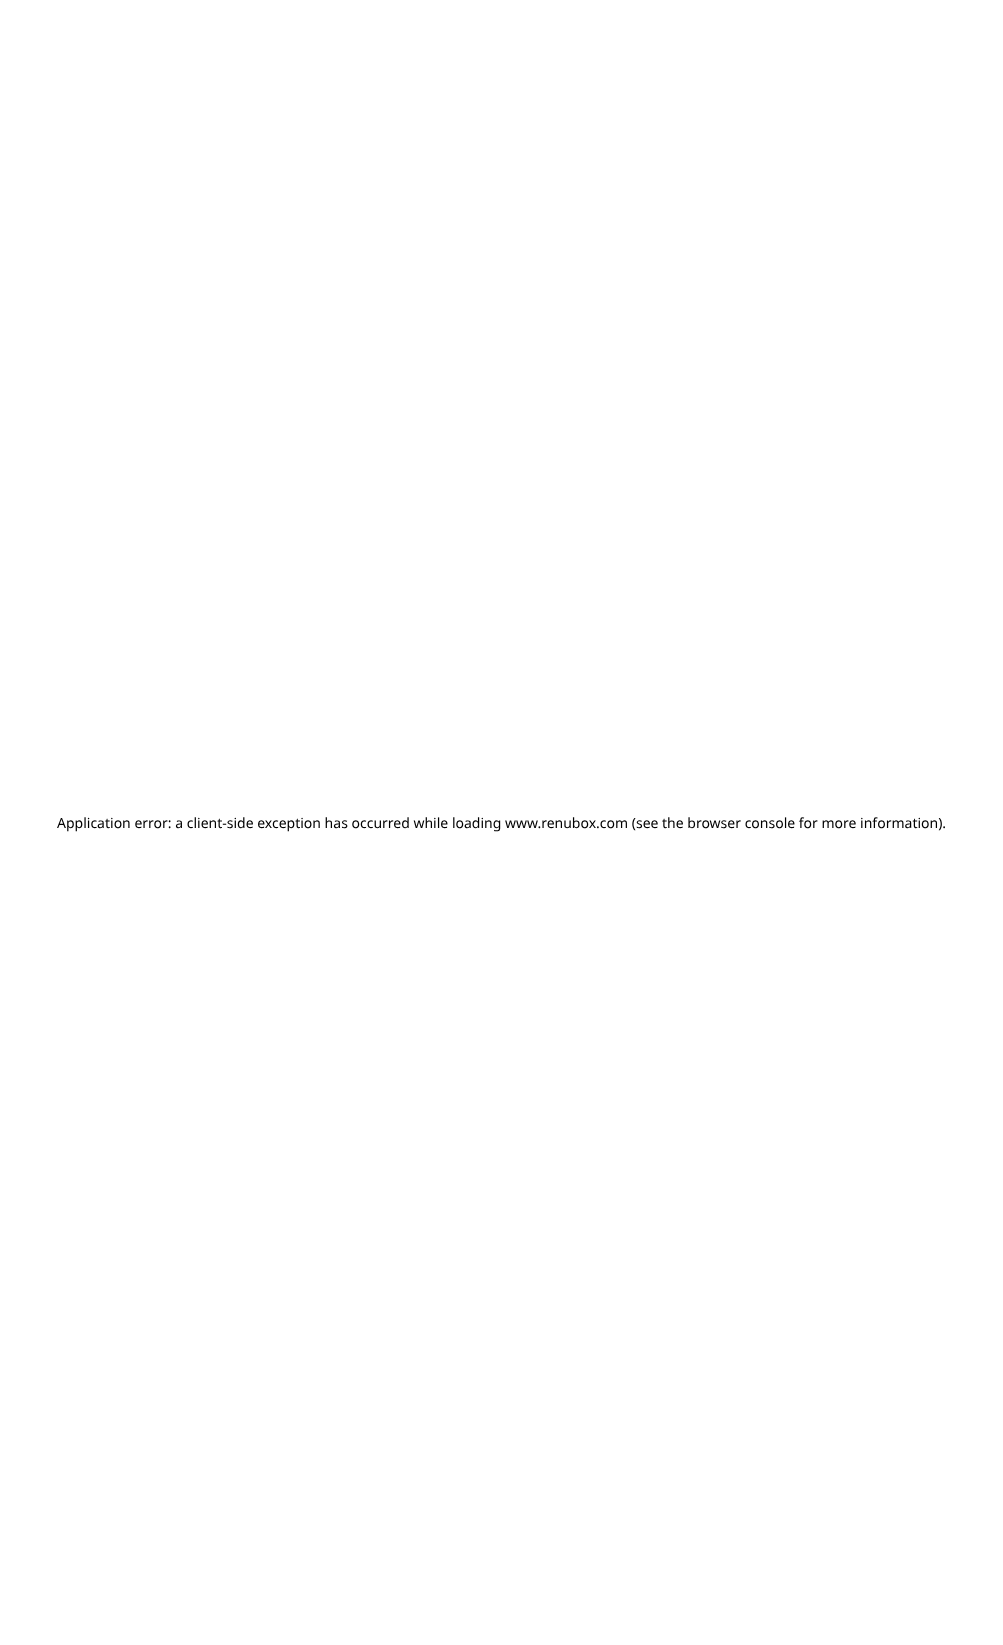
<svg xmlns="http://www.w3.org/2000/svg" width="1003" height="1645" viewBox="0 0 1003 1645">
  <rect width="100%" height="100%" fill="#fff"/>
  <text x="57" y="828" font-family="Noto Sans" font-size="14" fill="#000">Application error: a client-side exception has occurred while loading www.renubox.com (see the browser console for more information).</text>
</svg>
